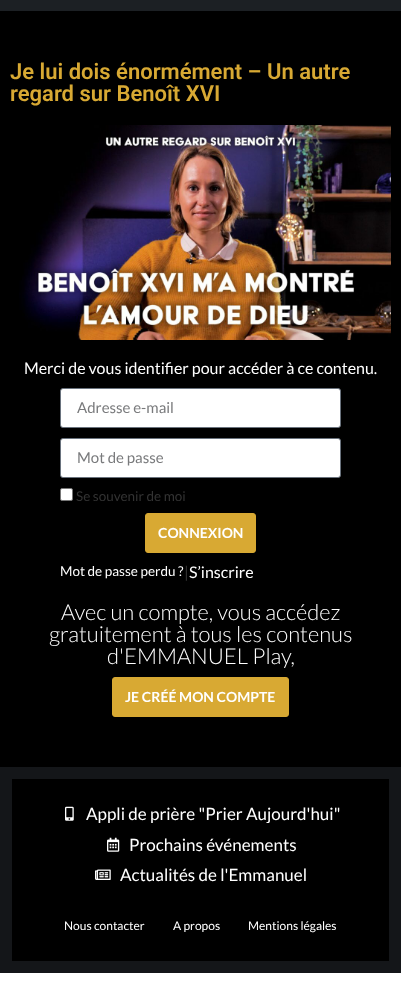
<svg xmlns="http://www.w3.org/2000/svg" width="401" height="989" viewBox="0 0 401 989">
  <rect width="100%" height="100%" fill="#000"/>
  <path d="M0 0h401v11H0z" fill="#1c2024"/>
  <image x="19" y="125" width="372" height="215" href="img/1.png"/>
  <rect x="60.5" y="388.5" width="280" height="39" rx="2.5" fill="#fff" stroke="#69727d"/>
  <rect x="60.5" y="438.5" width="280" height="39" rx="2.5" fill="#fff" stroke="#69727d"/>
  <rect x="60.5" y="488.5" width="12" height="12" rx="1.5" fill="#fff" stroke="#767676"/>
  <rect x="145.5" y="513.5" width="110" height="39" rx="2.5" fill="#d8a933" stroke="#d8a933"/>
  <rect x="112.5" y="677.5" width="176" height="39" rx="2.5" fill="#d8a933" stroke="#d8a933"/>
  <path d="M0 767h401v206H0z" fill="#141619"/>
  <path d="M12 779h377v182H12z" fill="#000"/>
  <image x="65" y="806" width="9" height="15" href="img/2.png"/>
  <image x="107" y="837" width="13" height="15" href="img/3.png"/>
  <image x="95" y="869" width="16" height="11" href="img/4.png"/>
  <path d="M0 973h401v16H0z" fill="#fff"/>
  <g font-family="Roboto" font-size="22" font-weight="600" fill="#d8a933">
    <text x="10" y="79">Je lui dois énormément – Un autre</text>
    <text x="10" y="101">regard sur Benoît XVI</text>
  </g>
  <text x="24" y="374" font-family="Lato" font-size="16" fill="#fff">Merci de vous identifier pour accéder à ce contenu.</text>
  <g font-family="Lato" font-size="15" fill="#797a7c">
    <text x="77" y="413">Adresse e-mail</text>
    <text x="77" y="463">Mot de passe</text>
  </g>
  <text x="76" y="501" font-family="Lato" font-size="13.5" fill="#333">Se souvenir de moi</text>
  <text x="158" y="538" font-family="Lato" font-size="14" font-weight="bold" fill="#fff">CONNEXION</text>
  <text x="60" y="576" font-family="Lato" font-size="13.5" fill="#fff">Mot de passe perdu ?</text>
  <text x="184" y="578" font-family="Lato" font-size="16" fill="#333">|</text>
  <text x="189" y="578" font-family="Lato" font-size="16" fill="#fff">S’inscrire</text>
  <g font-family="Lato" font-size="22" font-weight="300" fill="#fff">
    <text x="61" y="620">Avec un compte, vous accédez</text>
    <text x="49" y="642">gratuitement à tous les contenus</text>
    <text x="107" y="664">d'EMMANUEL Play,</text>
  </g>
  <text x="125" y="702" font-family="Lato" font-size="14" font-weight="bold" fill="#fff">JE CRÉÉ MON COMPTE</text>
  <g font-family="Lato" font-size="17" fill="#fff">
    <text x="86" y="820">Appli de prière "Prier Aujourd'hui"</text>
    <text x="129" y="851">Prochains événements</text>
    <text x="120" y="881">Actualités de l'Emmanuel</text>
  </g>
  <g font-family="Lato" font-size="12" fill="#fff">
    <text x="64" y="930">Nous contacter</text>
    <text x="173" y="930">A propos</text>
    <text x="248" y="930">Mentions légales</text>
  </g>
</svg>
